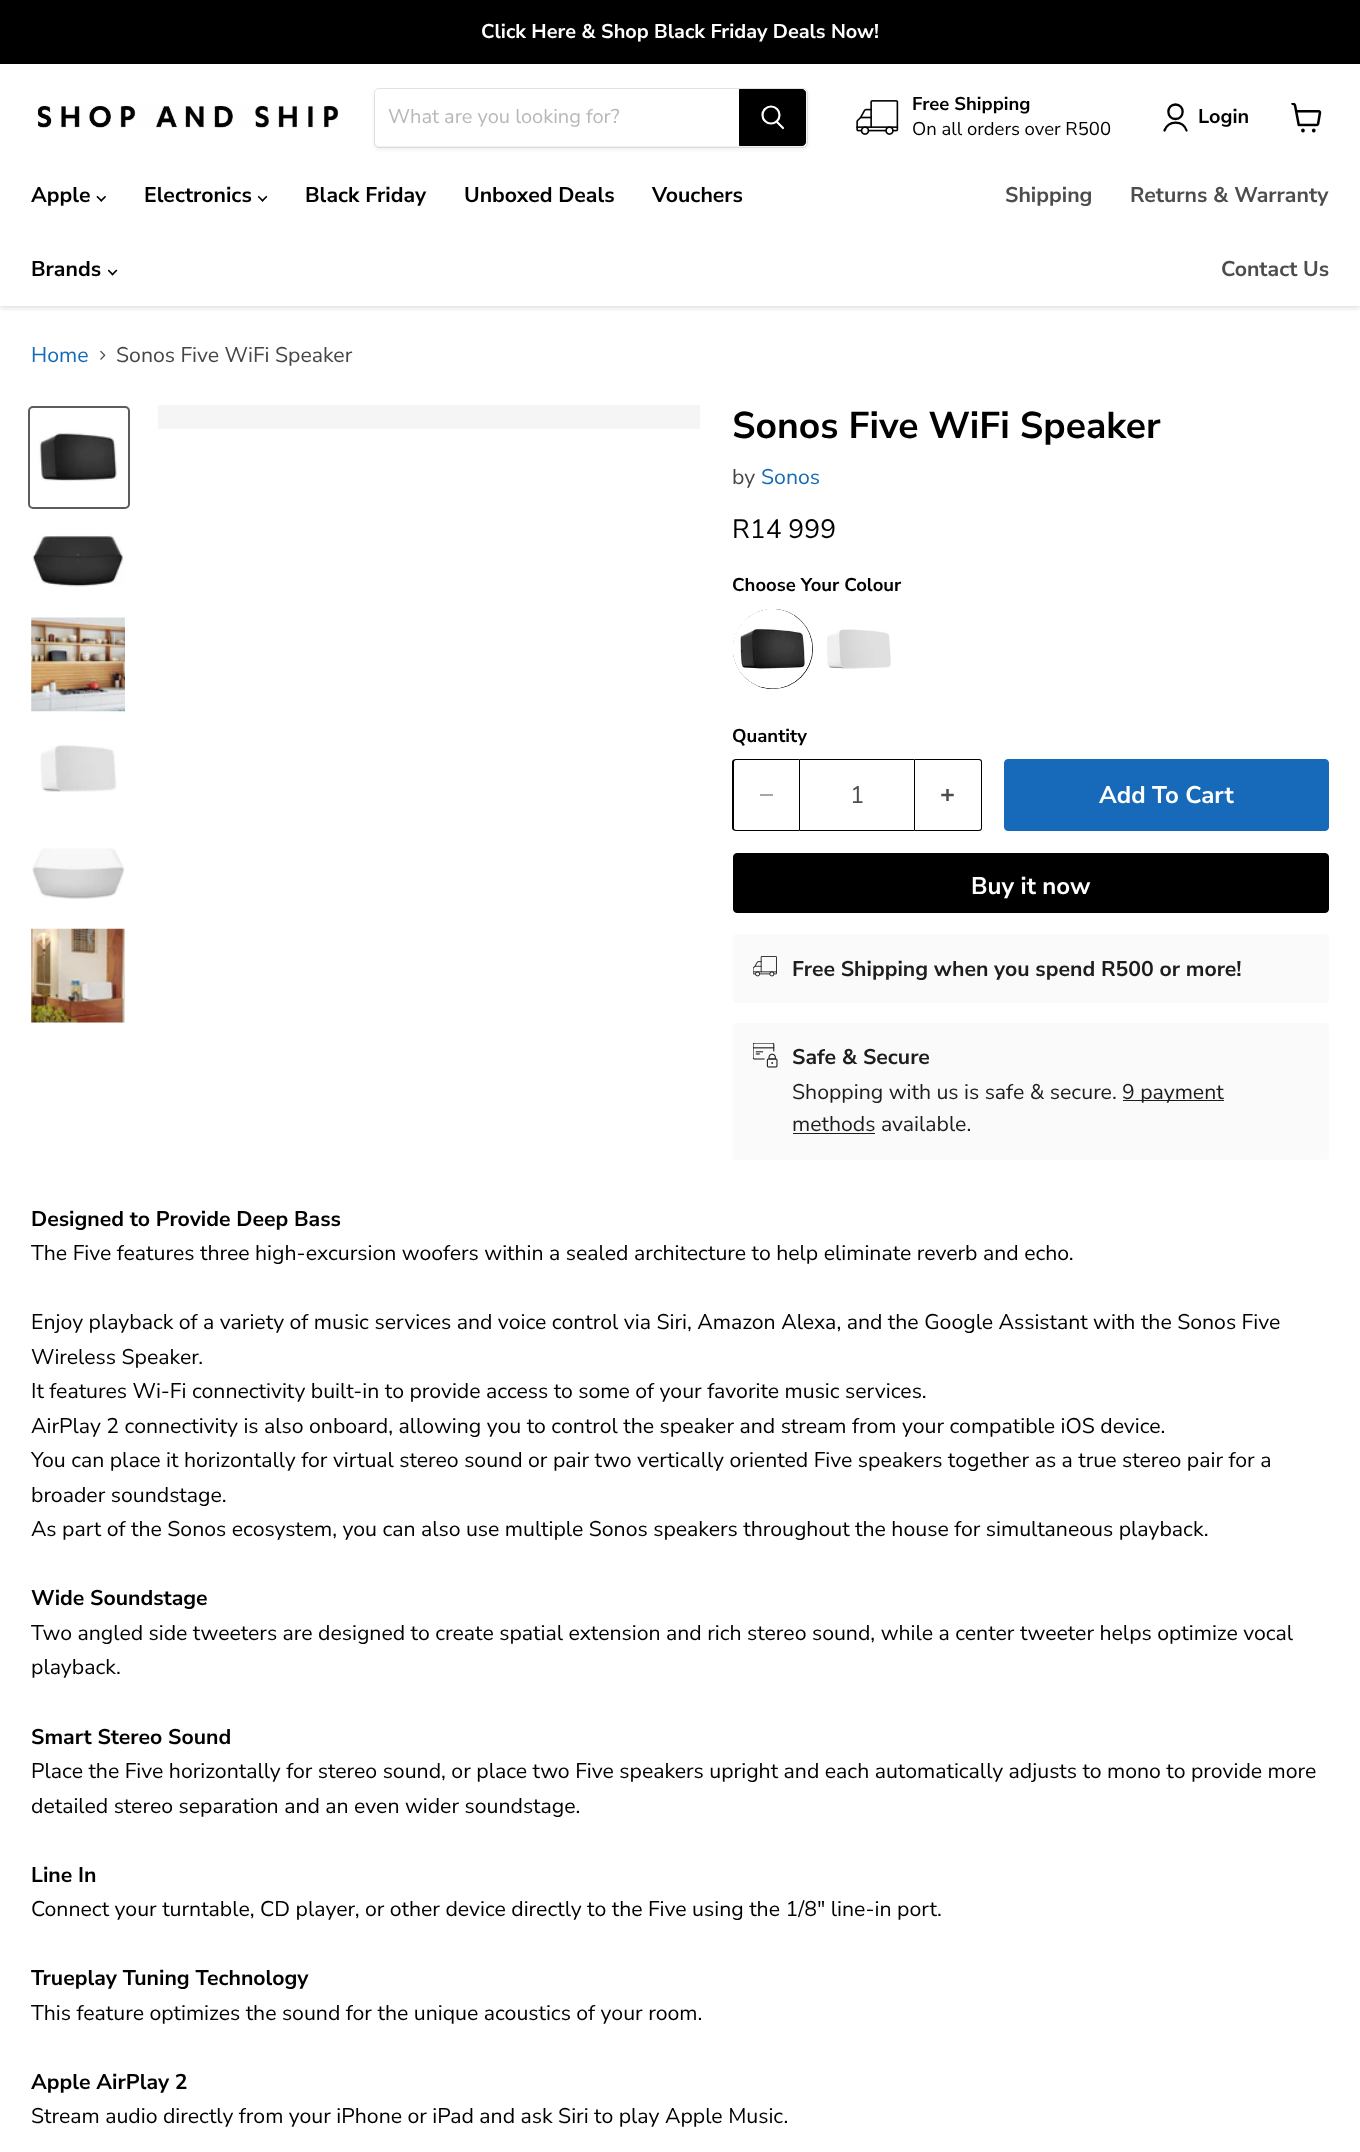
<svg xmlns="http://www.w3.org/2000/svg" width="1360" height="2152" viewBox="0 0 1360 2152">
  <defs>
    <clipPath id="clip1"><path d="M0 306h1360v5H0z"/></clipPath>
  </defs>
  <rect width="100%" height="100%" fill="#fff"/>
  <g clip-path="url(#clip1)">
    <path d="M0 65h1360v243H0z" fill="#80808040" filter="blur(2.5px)"/>
  </g>
  <path d="M0 0h1360v64H0z" fill="#000"/>
  <image x="37" y="105" width="302" height="23" href="img/1.png"/>
  <rect x="374" y="90" width="434" height="60" rx="5" fill="#8080801c" filter="blur(2px)"/>
  <rect x="374.5" y="88.5" width="433" height="59" rx="4.5" fill="none" stroke="#80808033"/>
  <path d="M379 89H739V146H379C377 146 375 144 375 142V93C375 91 377 89 379 89Z" fill="#fff"/>
  <path d="M739.5 89.5H802C804 89.5 805.5 91 805.5 93V142C805.5 144 804 145.5 802 145.5H739.5Z" fill="#000" stroke="#000"/>
  <path d="M783 128L777 122" fill="none" stroke="#fff" stroke-width="2.2" stroke-linecap="round"/>
  <circle cx="771" cy="115" r="8.5" fill="none" stroke="#fff" stroke-width="2.2"/>
  <image x="856" y="100" width="43" height="35" href="img/2.png"/>
  <path d="M1175.5 119C1185 119 1185 104.5 1175.5 104.5C1166 104.5 1166 119 1175.5 119ZM1186.5 130.5C1183 120 1168.5 120 1164.5 130.5" fill="none" stroke="#000" stroke-width="2.3" stroke-linecap="round" stroke-linejoin="round"/>
  <image x="1291" y="103" width="31" height="30" href="img/3.png"/>
  <image x="96" y="195" width="10" height="7" href="img/4.png"/>
  <image x="258" y="195" width="10" height="7" href="img/5.png"/>
  <image x="108" y="269" width="10" height="7" href="img/6.png"/>
  <image x="100" y="350" width="6" height="10" href="img/7.png"/>
  <rect x="29" y="407" width="100" height="101" rx="4" fill="none" stroke="#5c5c5c" stroke-width="2"/>
  <image x="38" y="430" width="79" height="52" href="img/8.png"/>
  <image x="32" y="534" width="93" height="53" href="img/9.png"/>
  <image x="31" y="617" width="94" height="95" href="img/10.png"/>
  <image x="40" y="745" width="77" height="47" href="img/11.png"/>
  <image x="32" y="848" width="93" height="51" href="img/12.png"/>
  <image x="31" y="928" width="94" height="95" href="img/13.png"/>
  <path d="M158 405h542v24H158z" fill="#f5f5f5"/>
  <circle cx="773" cy="649" r="40" fill="#000"/>
  <image x="733" y="609" width="80" height="80" href="img/14.png"/>
  <image x="827" y="629" width="64" height="40" href="img/15.png"/>
  <path d="M736 759H799V831H736C734 831 732 830 732 828V762C732 760 734 759 736 759ZM736 760H799V830H736C735 830 734 829 734 828V762C734 761 735 760 736 760Z" fill="#000" fill-rule="evenodd"/>
  <path d="M760 794h13v2H760z" fill="#a6a6a6"/>
  <path d="M799.5 759.5h115v71H799.5z" fill="none" stroke="#000"/>
  <path d="M915 759H979C981 759 982 760 982 762V828C982 830 981 831 979 831H915ZM915 760H979C980 760 981 761 981 762V828C981 829 980 830 979 830H915Z" fill="#000" fill-rule="evenodd"/>
  <image x="941" y="789" width="13" height="12" href="img/16.png"/>
  <rect x="1004.5" y="759.5" width="324" height="71" rx="3.5" fill="#176aba" stroke="#176aba"/>
  <rect x="733.5" y="853.5" width="595" height="59" rx="3.5" fill="#000" stroke="#000"/>
  <rect x="733" y="934" width="596" height="69" rx="4" fill="#fafafa"/>
  <image x="753" y="956" width="24" height="21" href="img/17.png"/>
  <rect x="733" y="1023" width="596" height="137" rx="4" fill="#fafafa"/>
  <image x="753" y="1043" width="25" height="25" href="img/18.png"/>
  <path d="M1123 1100h101v1H1123z" fill="#1d1d1d"/>
  <path d="M793 1133h82v1H793z" fill="#1d1d1d"/>
  <text x="481" y="38" font-family="Nunito Sans" font-size="19.9" font-weight="bold" fill="#fff">Click Here &amp; Shop Black Friday Deals Now!</text>
  <text x="388" y="123" font-family="Nunito Sans" font-size="20" fill="#b8b8b8">What are you looking for?</text>
  <text x="912" y="110" font-family="Nunito Sans" font-size="18.5" font-weight="bold" fill="#000">Free Shipping</text>
  <text x="912" y="135" font-family="Nunito Sans" font-size="18.5" fill="#000">On all orders over R500</text>
  <text x="1198" y="123" font-family="Nunito Sans" font-size="19.9" font-weight="bold" fill="#000">Login</text>
  <g font-family="Nunito Sans" font-size="21.25" font-weight="bold" fill="#000">
    <text x="31" y="202">Apple</text>
    <text x="144" y="202">Electronics</text>
    <text x="305" y="202">Black Friday</text>
    <text x="464" y="202">Unboxed Deals</text>
    <text x="652" y="202">Vouchers</text>
    <text x="31" y="276">Brands</text>
  </g>
  <g font-family="Nunito Sans" font-size="21.25" font-weight="bold" fill="#4d4d4d">
    <text x="1005" y="202">Shipping</text>
    <text x="1130" y="202">Returns &amp; Warranty</text>
    <text x="1221" y="276">Contact Us</text>
  </g>
  <text x="31" y="362" font-family="Nunito Sans" font-size="21.25" fill="#176aba">Home</text>
  <text x="116" y="362" font-family="Nunito Sans" font-size="21.25" fill="#464646">Sonos Five WiFi Speaker</text>
  <text x="732" y="438" font-family="Nunito Sans" font-size="37.25" font-weight="bold" fill="#000">Sonos Five WiFi Speaker</text>
  <text x="732" y="484" font-family="Nunito Sans" font-size="21.25" fill="#464646">by</text>
  <text x="761" y="484" font-family="Nunito Sans" font-size="21.25" fill="#176aba">Sonos</text>
  <text x="732" y="538" font-family="Nunito Sans" font-size="26.5" fill="#000">R14 999</text>
  <g font-family="Nunito Sans" font-size="18.5" font-weight="bold" fill="#000">
    <text x="732" y="591">Choose Your Colour</text>
    <text x="732" y="742">Quantity</text>
  </g>
  <text x="850" y="803" font-family="Nunito Sans" font-size="24" fill="#4d4d4d">1</text>
  <g font-family="Nunito Sans" font-size="24" font-weight="bold" fill="#fff">
    <text x="1099" y="803">Add To Cart</text>
    <text x="971" y="894">Buy it now</text>
  </g>
  <g font-family="Nunito Sans" font-size="21.25" font-weight="bold" fill="#1d1d1d">
    <text x="792" y="976">Free Shipping when you spend R500 or more!</text>
    <text x="792" y="1064">Safe &amp; Secure</text>
  </g>
  <g font-family="Nunito Sans" font-size="21.25" fill="#1d1d1d">
    <text x="792" y="1099">Shopping with us is safe &amp; secure.</text>
    <text x="1122" y="1099">9 payment</text>
    <text x="792" y="1131">methods available.</text>
  </g>
  <text x="31" y="1226" font-family="Nunito Sans" font-size="21.25" font-weight="bold" fill="#000">Designed to Provide Deep Bass</text>
  <g font-family="Nunito Sans" font-size="21.25" fill="#000">
    <text x="31" y="1260">The Five features three high-excursion woofers within a sealed architecture to help eliminate reverb and echo.</text>
    <text x="31" y="1329">Enjoy playback of a variety of music services and voice control via Siri, Amazon Alexa, and the Google Assistant with the Sonos Five</text>
    <text x="31" y="1364">Wireless Speaker.</text>
    <text x="31" y="1398">It features Wi-Fi connectivity built-in to provide access to some of your favorite music services.</text>
    <text x="31" y="1433">AirPlay 2 connectivity is also onboard, allowing you to control the speaker and stream from your compatible iOS device.</text>
    <text x="31" y="1467">You can place it horizontally for virtual stereo sound or pair two vertically oriented Five speakers together as a true stereo pair for a</text>
    <text x="31" y="1502">broader soundstage.</text>
    <text x="31" y="1536">As part of the Sonos ecosystem, you can also use multiple Sonos speakers throughout the house for simultaneous playback.</text>
  </g>
  <text x="31" y="1605" font-family="Nunito Sans" font-size="21.25" font-weight="bold" fill="#000">Wide Soundstage</text>
  <g font-family="Nunito Sans" font-size="21.25" fill="#000">
    <text x="31" y="1640">Two angled side tweeters are designed to create spatial extension and rich stereo sound, while a center tweeter helps optimize vocal</text>
    <text x="31" y="1674">playback.</text>
  </g>
  <text x="31" y="1744" font-family="Nunito Sans" font-size="21.25" font-weight="bold" fill="#000">Smart Stereo Sound</text>
  <g font-family="Nunito Sans" font-size="21.25" fill="#000">
    <text x="31" y="1778">Place the Five horizontally for stereo sound, or place two Five speakers upright and each automatically adjusts to mono to provide more</text>
    <text x="31" y="1813">detailed stereo separation and an even wider soundstage.</text>
  </g>
  <text x="31" y="1882" font-family="Nunito Sans" font-size="21.25" font-weight="bold" fill="#000">Line In</text>
  <text x="31" y="1916" font-family="Nunito Sans" font-size="21.25" fill="#000">Connect your turntable, CD player, or other device directly to the Five using the 1/8" line-in port.</text>
  <text x="31" y="1985" font-family="Nunito Sans" font-size="21.25" font-weight="bold" fill="#000">Trueplay Tuning Technology</text>
  <text x="31" y="2020" font-family="Nunito Sans" font-size="21.25" fill="#000">This feature optimizes the sound for the unique acoustics of your room.</text>
  <text x="31" y="2089" font-family="Nunito Sans" font-size="21.25" font-weight="bold" fill="#000">Apple AirPlay 2</text>
  <text x="31" y="2123" font-family="Nunito Sans" font-size="21.25" fill="#000">Stream audio directly from your iPhone or iPad and ask Siri to play Apple Music.</text>
</svg>
